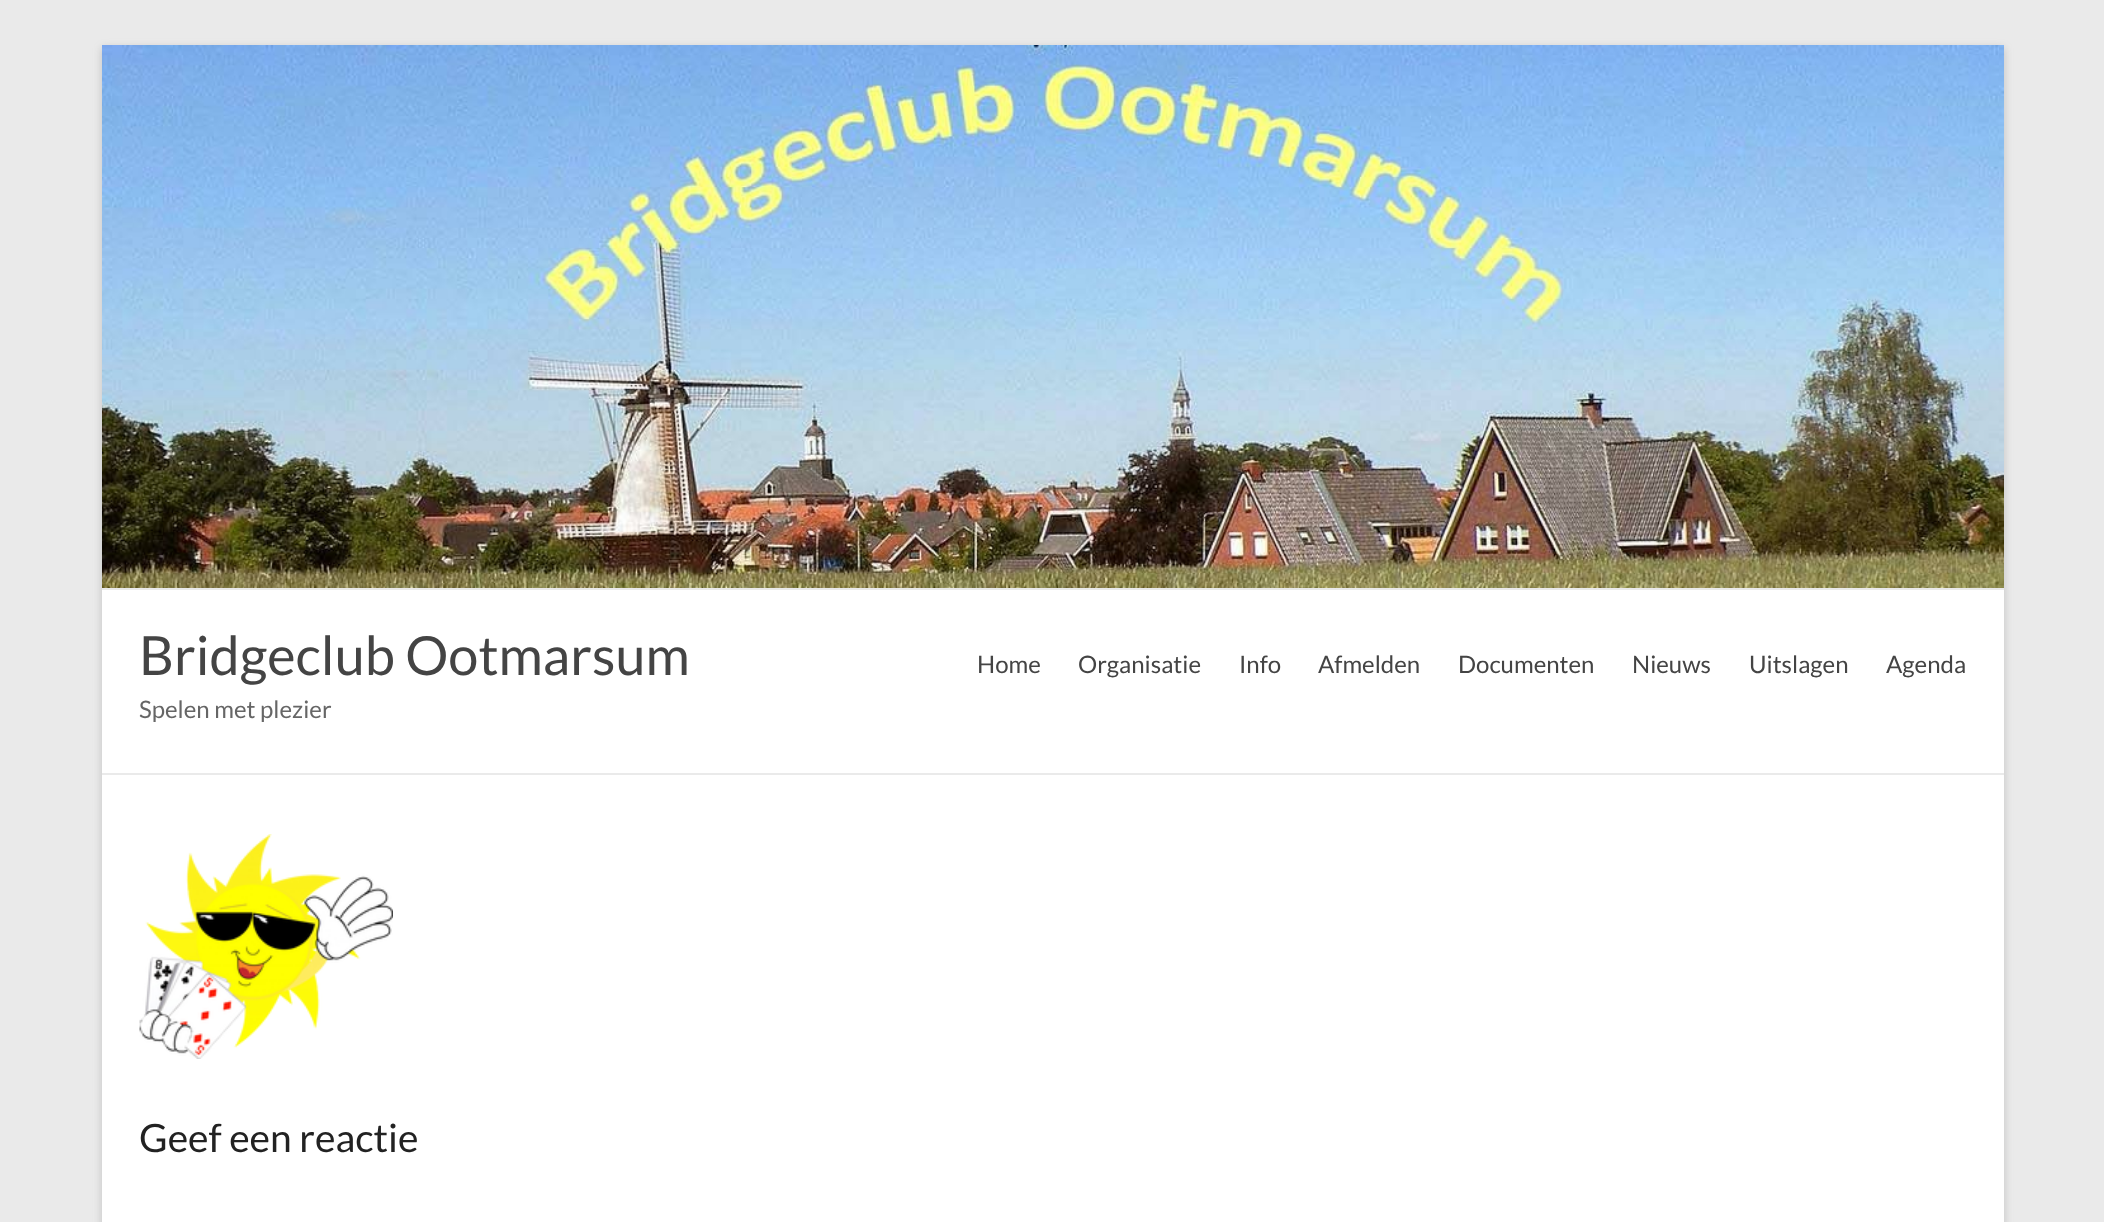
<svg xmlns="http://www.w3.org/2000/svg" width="2104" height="1222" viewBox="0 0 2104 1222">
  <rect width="100%" height="100%" fill="#eaeaea"/>
  <path d="M102 48h1902v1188H102z" fill="#6464644d" filter="blur(4.5px)"/>
  <path d="M102 590h1902v632H102z" fill="#fff"/>
  <image x="102" y="45" width="1902" height="543" href="img/1.png"/>
  <path d="M102 588h1902v2H102z" fill="#eaeaea"/>
  <path d="M102 773h1902v2H102z" fill="#eaeaea"/>
  <image x="139" y="834" width="254" height="225" href="img/2.png"/>
  <text x="139" y="675" font-family="Lato" font-size="54" fill="#444">Bridgeclub Ootmarsum</text>
  <text x="139" y="718" font-family="Lato" font-size="24" fill="#666">Spelen met plezier</text>
  <g font-family="Lato" font-size="24" fill="#444">
    <text x="977" y="673">Home</text>
    <text x="1078" y="673">Organisatie</text>
    <text x="1239" y="673">Info</text>
    <text x="1318" y="673">Afmelden</text>
    <text x="1458" y="673">Documenten</text>
    <text x="1632" y="673">Nieuws</text>
    <text x="1749" y="673">Uitslagen</text>
    <text x="1886" y="673">Agenda</text>
  </g>
  <text x="139" y="1152" font-family="Lato" font-size="39" fill="#222">Geef een reactie</text>
</svg>
